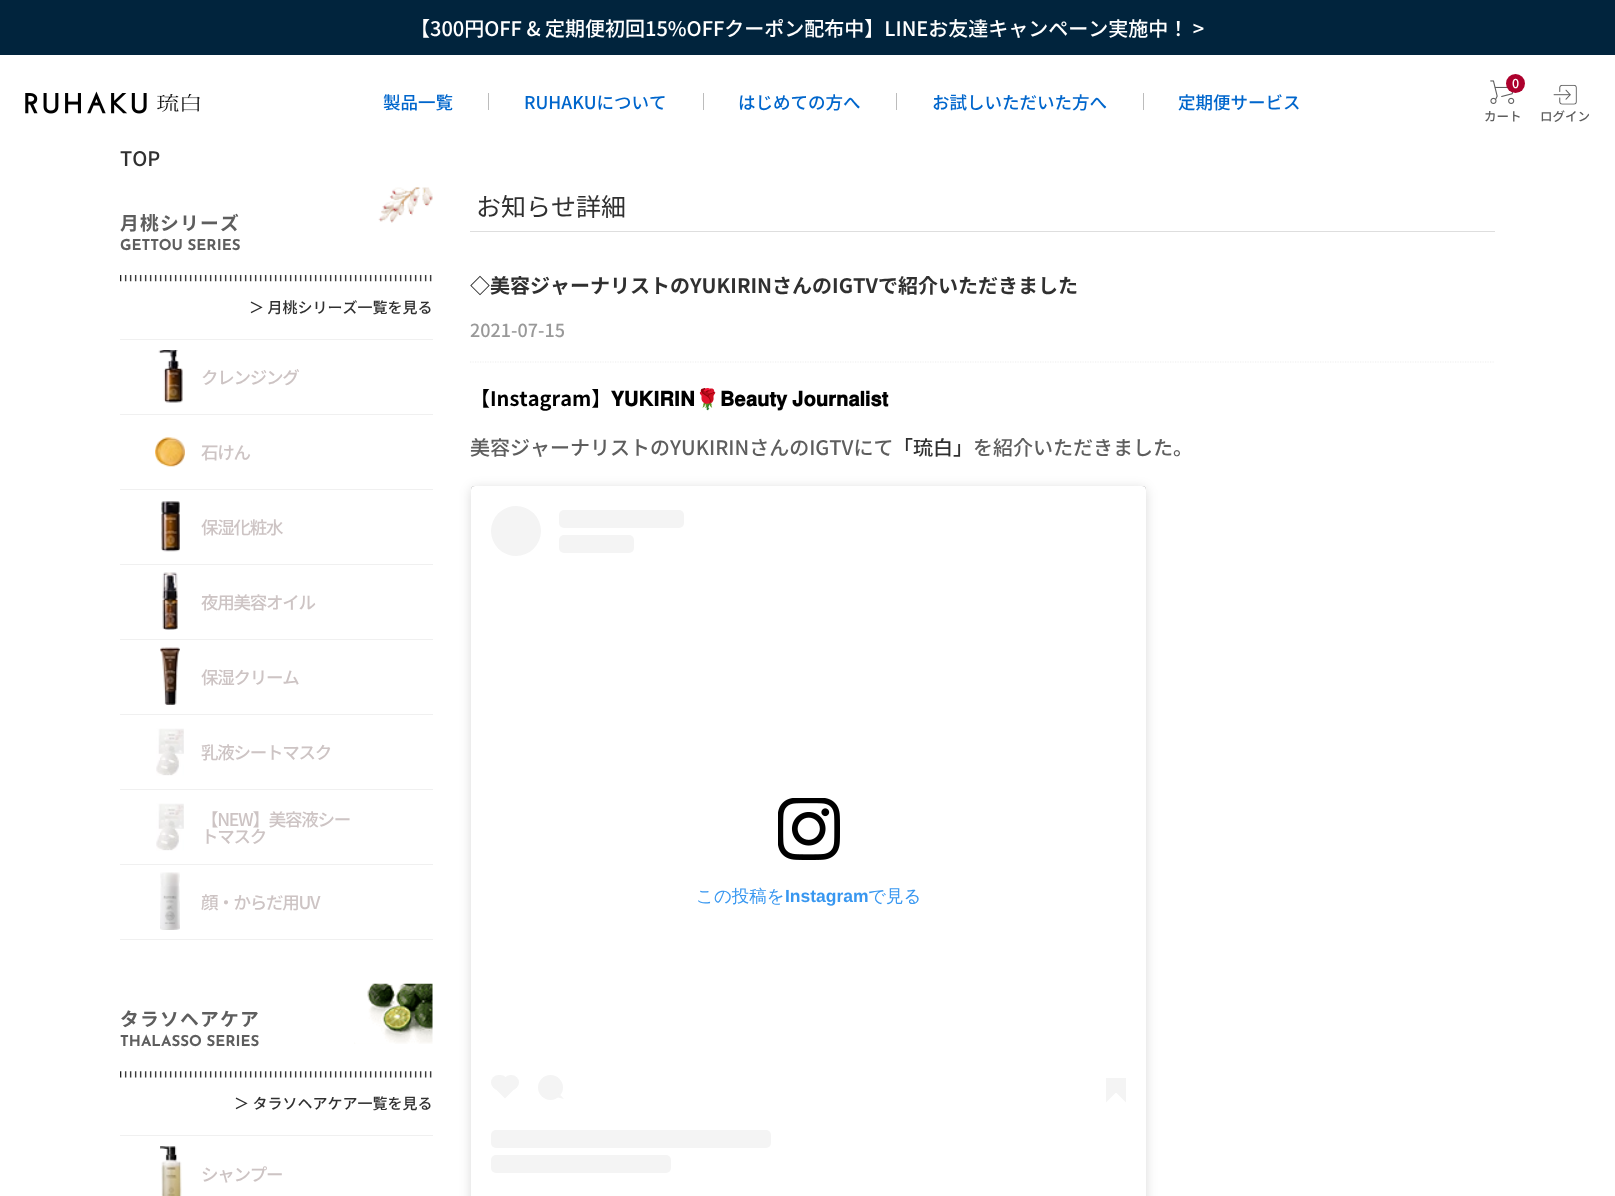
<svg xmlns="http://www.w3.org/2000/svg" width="1615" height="1196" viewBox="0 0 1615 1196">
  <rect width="100%" height="100%" fill="#fff"/>
  <path d="M0 0h1615v55H0z" fill="#01243d"/>
  <image x="25" y="91" width="175" height="23" href="img/1.png"/>
  <path d="M488 93h1v17H488z" fill="#bcbcbc"/>
  <path d="M703 93h1v17H703z" fill="#bcbcbc"/>
  <path d="M896 93h1v17H896z" fill="#bcbcbc"/>
  <path d="M1143 93h1v17H1143z" fill="#bcbcbc"/>
  <image x="1490" y="80" width="25" height="24" href="img/2.png"/>
  <circle cx="1515.5" cy="83.5" r="9.5" fill="#ad002d"/>
  <image x="1553" y="84" width="24" height="21" href="img/3.png"/>
  <image x="378" y="187" width="55" height="36" href="img/4.png"/>
  <image x="120" y="275" width="312" height="7" href="img/5.png"/>
  <path d="M120 339h313v1H120z" fill="#f0f0f0"/>
  <path d="M120 414h313v1H120z" fill="#f0f0f0"/>
  <image x="158" y="350" width="25" height="53" href="img/6.png"/>
  <path d="M120 489h313v1H120z" fill="#f0f0f0"/>
  <image x="155" y="437" width="30" height="30" href="img/7.png"/>
  <path d="M120 564h313v1H120z" fill="#f0f0f0"/>
  <image x="161" y="501" width="19" height="51" href="img/8.png"/>
  <path d="M120 639h313v1H120z" fill="#f0f0f0"/>
  <image x="162" y="572" width="16" height="58" href="img/9.png"/>
  <path d="M120 714h313v1H120z" fill="#f0f0f0"/>
  <image x="160" y="647" width="20" height="58" href="img/10.png"/>
  <path d="M120 789h313v1H120z" fill="#f0f0f0"/>
  <image x="156" y="728" width="28" height="48" href="img/11.png"/>
  <path d="M120 864h313v1H120z" fill="#f0f0f0"/>
  <image x="156" y="803" width="28" height="48" href="img/11.png"/>
  <path d="M120 939h313v1H120z" fill="#f0f0f0"/>
  <image x="160" y="872" width="20" height="58" href="img/12.png"/>
  <image x="354" y="983" width="79" height="61" href="img/13.png"/>
  <image x="120" y="1071" width="312" height="7" href="img/14.png"/>
  <path d="M120 1135h313v1H120z" fill="#f0f0f0"/>
  <image x="160" y="1146" width="22" height="50" href="img/15.png"/>
  <path d="M470 231h1025v1H470z" fill="#dedede"/>
  <path d="M470 362H1495" fill="none" stroke="#eee" stroke-width="1.2" stroke-dasharray="1.25 1.25"/>
  <rect x="471" y="488" width="675" height="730" rx="4" fill="#00000026" filter="blur(6px)"/>
  <rect x="471" y="486" width="675" height="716" rx="4" fill="#00000080" filter="blur(0.5px)"/>
  <rect x="471" y="486" width="675" height="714" rx="4" fill="#fff"/>
  <circle cx="516" cy="531" r="25" fill="#f4f4f4"/>
  <rect x="559" y="510" width="125" height="18" rx="5" fill="#f4f4f4"/>
  <rect x="559" y="535" width="75" height="18" rx="5" fill="#f4f4f4"/>
  <image x="778" y="798" width="62" height="62" href="img/16.png"/>
  <rect x="491" y="1075" width="17" height="15" rx="7.5" fill="#f4f4f4"/>
  <path d="M494 1087.5L505 1076.5L516 1087.5L505 1098.5Z" fill="#f4f4f4"/>
  <rect x="503" y="1075" width="16" height="15" rx="7.5" fill="#f4f4f4"/>
  <circle cx="550.5" cy="1087.5" r="12.5" fill="#f4f4f4"/>
  <path d="M556 1097L558.5 1093L564 1099Z" fill="#f4f4f4"/>
  <path d="M1106 1092.5H1116L1106 1102.5Z" fill="#f4f4f4"/>
  <path d="M1106 1078h20v15H1106z" fill="#f4f4f4"/>
  <path d="M1116 1092.5H1126V1102.5Z" fill="#f4f4f4"/>
  <rect x="491" y="1130" width="280" height="18" rx="5" fill="#f4f4f4"/>
  <rect x="491" y="1155" width="180" height="18" rx="5" fill="#f4f4f4"/>
  <text x="410" y="36" font-family="Noto Sans JP" font-size="20" font-weight="500" fill="#fff">【300円OFF &amp; 定期便初回15%OFFクーポン配布中】LINEお友達キャンペーン実施中！ &gt;</text>
  <g font-family="Noto Sans JP" font-size="17.5" font-weight="500" fill="#06c">
    <text x="383" y="109">製品一覧</text>
    <text x="524" y="109">RUHAKUについて</text>
    <text x="738" y="109">はじめての方へ</text>
    <text x="932" y="109">お試しいただいた方へ</text>
    <text x="1178" y="109">定期便サービス</text>
  </g>
  <text x="1512" y="88" font-family="Noto Sans JP" font-size="12.5" font-weight="500" fill="#fff">0</text>
  <g font-family="Noto Sans JP" font-size="12.5" font-weight="500" fill="#5e5e5e">
    <text x="1484" y="121">カート</text>
    <text x="1540" y="121">ログイン</text>
  </g>
  <text x="120" y="166" font-family="Noto Sans JP" font-size="20" font-weight="500" fill="#303030">TOP</text>
  <text x="120" y="230" font-family="Noto Sans JP" font-size="18.75" font-weight="bold" letter-spacing="1.25" fill="#5e5e5e">月桃シリーズ</text>
  <text x="120" y="250" font-family="Josefin Sans" font-size="15" font-weight="bold" fill="#5e5e5e">GETTOU SERIES</text>
  <text x="249" y="313" font-family="Noto Sans JP" font-size="15" font-weight="500" fill="#303030">＞ 月桃シリーズ一覧を見る</text>
  <g font-family="Noto Sans JP" font-size="17.5" font-weight="500" letter-spacing="-1.25" fill="#cdc4c4">
    <text x="201" y="384">クレンジング</text>
    <text x="201" y="459">石けん</text>
    <text x="201" y="534">保湿化粧水</text>
    <text x="201" y="609">夜用美容オイル</text>
    <text x="201" y="684">保湿クリーム</text>
    <text x="201" y="759">乳液シートマスク</text>
    <text x="201" y="826">【NEW】美容液シー</text>
    <text x="201" y="843">トマスク</text>
    <text x="201" y="909">顔・からだ用UV</text>
  </g>
  <text x="120" y="1026" font-family="Noto Sans JP" font-size="18.75" font-weight="bold" letter-spacing="1.25" fill="#5e5e5e">タラソヘアケア</text>
  <text x="120" y="1046" font-family="Josefin Sans" font-size="15" font-weight="bold" fill="#5e5e5e">THALASSO SERIES</text>
  <text x="234" y="1109" font-family="Noto Sans JP" font-size="15" font-weight="500" fill="#303030">＞ タラソヘアケア一覧を見る</text>
  <text x="201" y="1181" font-family="Noto Sans JP" font-size="17.5" font-weight="500" letter-spacing="-1.25" fill="#cdc4c4">シャンプー</text>
  <text x="476" y="216" font-family="Noto Sans JP" font-size="25" fill="#303030">お知らせ詳細</text>
  <text x="470" y="293" font-family="Noto Sans JP" font-size="20" font-weight="bold" fill="#303030">◇美容ジャーナリストのYUKIRINさんのIGTVで紹介いただきました</text>
  <text x="470" y="337" font-family="Noto Sans JP" font-size="18" font-weight="500" fill="#999">2021-07-15</text>
  <text x="470" y="406" font-family="Noto Sans JP" font-size="20" font-weight="bold" fill="#000">【Instagram】</text>
  <text x="611" y="406" font-family="FreeSans" font-size="20" font-weight="bold" fill="#000">𝐘𝐔𝐊𝐈𝐑𝐈𝐍</text>
  <text x="695" y="406" font-family="Noto Color Emoji" font-size="20" font-weight="bold" fill="#000">🌹</text>
  <text x="720" y="406" font-family="FreeSans" font-size="20" font-weight="bold" fill="#000">𝐁𝐞𝐚𝐮𝐭𝐲 𝐉𝐨𝐮𝐫𝐧𝐚𝐥𝐢𝐬𝐭</text>
  <text x="470" y="455" font-family="Noto Sans JP" font-size="20" font-weight="500" fill="#5e5e5e">美容ジャーナリストのYUKIRINさんのIGTVにて</text>
  <text x="893" y="455" font-family="Noto Sans JP" font-size="20" font-weight="500" fill="#303030">「琉白」</text>
  <text x="973" y="455" font-family="Noto Sans JP" font-size="20" font-weight="500" fill="#5e5e5e">を紹介いただきました。</text>
  <text x="696" y="902" font-family="WenQuanYi Zen Hei" font-size="17.5" font-weight="500" fill="#3897f0">この投稿を</text>
  <text x="785" y="902" font-family="Liberation Sans" font-size="17.5" font-weight="bold" fill="#3897f0">Instagram</text>
  <text x="868" y="902" font-family="WenQuanYi Zen Hei" font-size="17.5" font-weight="500" fill="#3897f0">で見る</text>
</svg>
